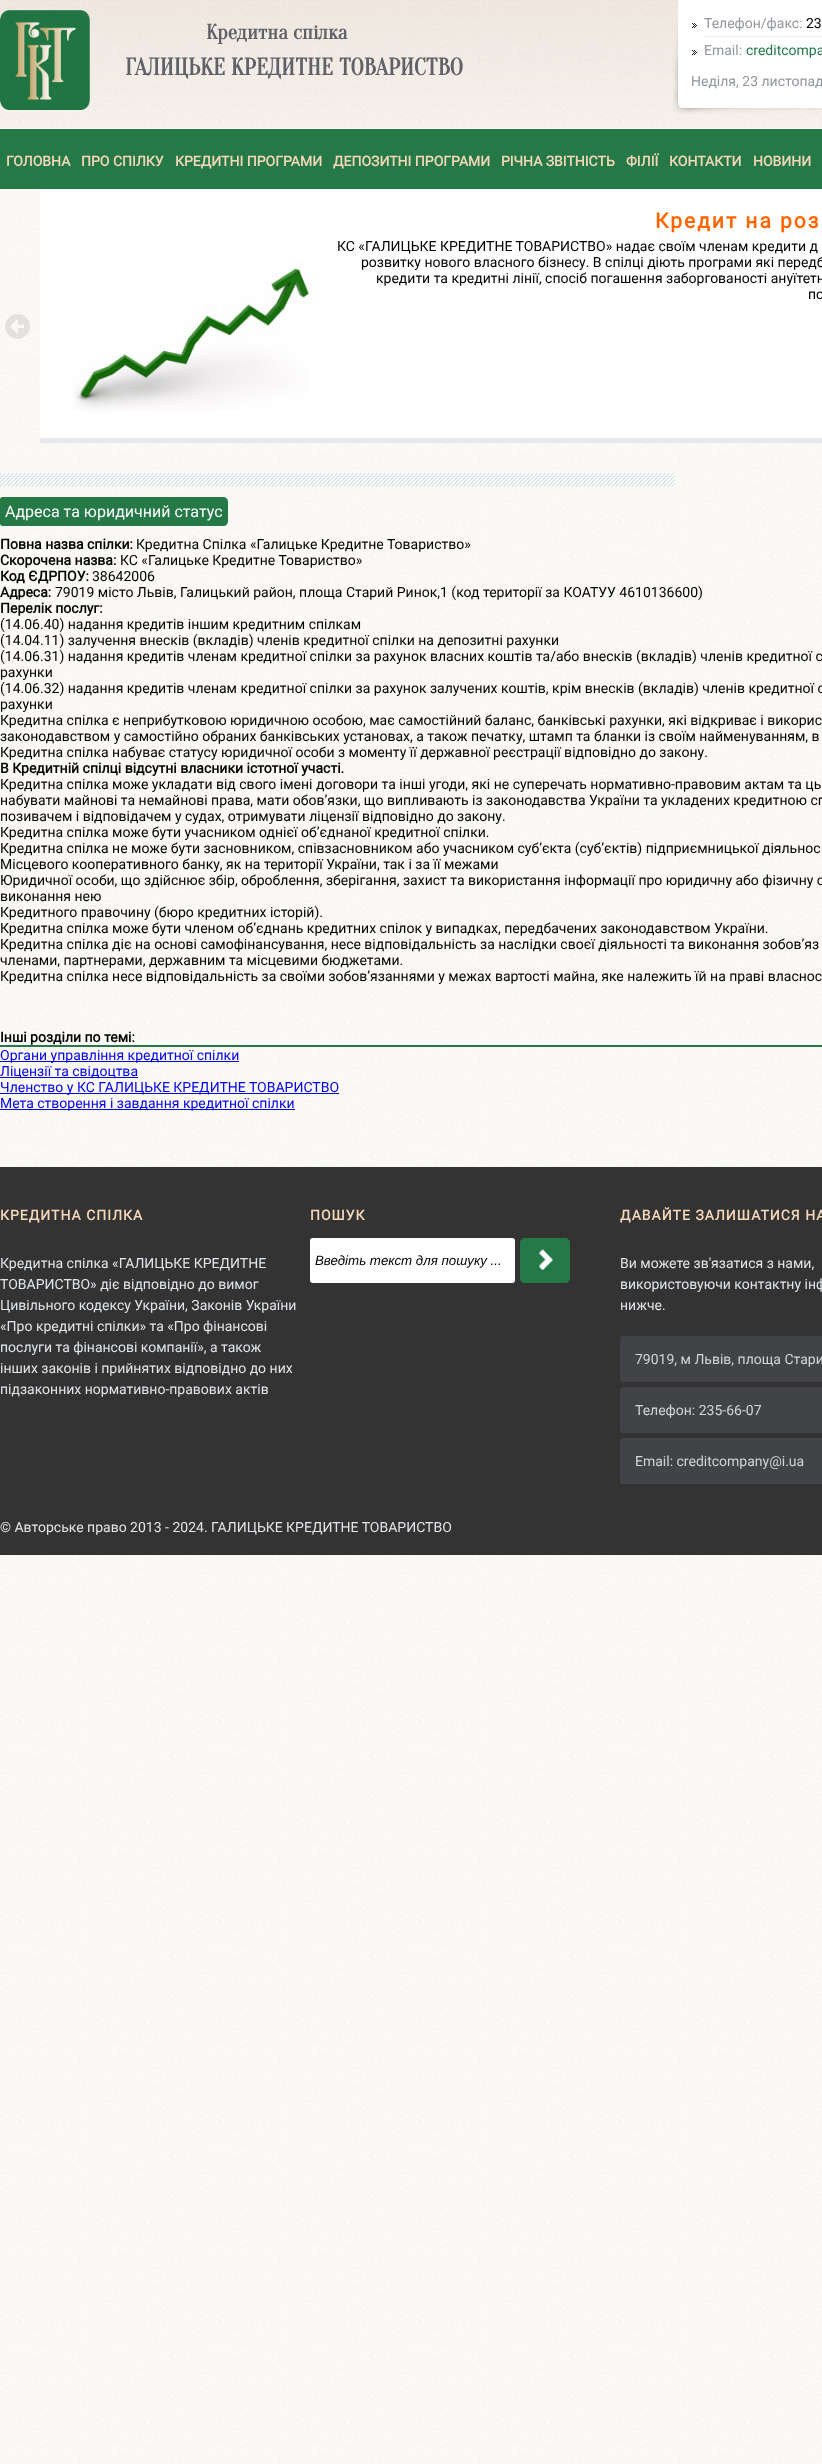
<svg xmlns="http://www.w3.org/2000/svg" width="822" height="2464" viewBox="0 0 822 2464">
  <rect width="100%" height="100%" fill="#fff"/>
  <image x="0" y="0" width="822" height="2464" href="img/1.png"/>
  <image x="0" y="0" width="822" height="128" href="img/2.png"/>
  <image x="0" y="10" width="90" height="100" href="img/3.png"/>
  <image x="673" y="0" width="149" height="114" href="img/4.png"/>
  <path d="M704 36h118v1H704z" fill="#ebebed"/>
  <image x="692" y="23" width="5" height="5" href="img/5.png"/>
  <image x="692" y="50" width="5" height="5" href="img/5.png"/>
  <path d="M0 129h822v60H0z" fill="#257947"/>
  <path d="M0 128h822v1H0z" fill="#fff"/>
  <path d="M40 189h782v249H40z" fill="#fff"/>
  <path d="M40 438h782v5H40z" fill="#e5e9ed"/>
  <image x="73" y="268" width="237" height="144" href="img/6.png"/>
  <image x="5" y="314" width="25" height="25" href="img/7.png"/>
  <image x="0" y="473" width="675" height="14" href="img/8.png"/>
  <path d="M2.5 497H5V526H2.5C1 526 0 525 0 523.5V499.5C0 498 1 497 2.5 497Z" fill="#257947"/>
  <path d="M5 497H223C226 497 228 499 228 502V521C228 524 226 526 223 526H5Z" fill="#257947"/>
  <path d="M0 1045h822v2H0z" fill="#257947"/>
  <path d="M0 1061h239v1H0z" fill="#00e"/>
  <path d="M0 1077h138v1H0z" fill="#00e"/>
  <path d="M0 1093h339v1H0z" fill="#00e"/>
  <path d="M0 1109h295v1H0z" fill="#00e"/>
  <path d="M0 1167h822v388H0z" fill="#333"/>
  <rect x="310" y="1238" width="205" height="45" rx="3" fill="#fff"/>
  <image x="520" y="1238" width="50" height="45" href="img/9.png"/>
  <rect x="620" y="1336" width="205" height="46" rx="3" fill="#424347"/>
  <rect x="620" y="1387" width="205" height="46" rx="3" fill="#424347"/>
  <rect x="620" y="1438" width="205" height="46" rx="3" fill="#424347"/>
  <text x="206" y="39" font-family="Oranienbaum" font-size="21" font-weight="bold" fill="#606168">Кредитна спілка</text>
  <text x="125" y="75" font-family="Oranienbaum" font-size="24" font-weight="bold" fill="#606168">ГАЛИЦЬКЕ КРЕДИТНЕ ТОВАРИСТВО</text>
  <text x="704" y="28" font-family="Roboto" font-size="14" fill="#92979d">Телефон/факс:</text>
  <text x="806" y="28" font-family="Roboto" font-size="14" fill="#000">23</text>
  <text x="704" y="55" font-family="Roboto" font-size="14" fill="#92979d">Email:</text>
  <text x="746" y="55" font-family="Roboto" font-size="14" fill="#257947">creditcompa</text>
  <text x="691" y="86" font-family="Roboto" font-size="14" fill="#92979d">Неділя, 23 листопад</text>
  <g font-family="Roboto" font-size="14" font-weight="bold" fill="#f4d7b9">
    <text x="6" y="166">ГОЛОВНА</text>
    <text x="81" y="166">ПРО СПІЛКУ</text>
    <text x="175" y="166">КРЕДИТНІ ПРОГРАМИ</text>
    <text x="333" y="166">ДЕПОЗИТНІ ПРОГРАМИ</text>
    <text x="501" y="166">РІЧНА ЗВІТНІСТЬ</text>
    <text x="626" y="166">ФІЛІЇ</text>
    <text x="669" y="166">КОНТАКТИ</text>
    <text x="753" y="166">НОВИНИ</text>
  </g>
  <text x="655" y="228" font-family="Roboto" font-size="21" font-weight="bold" letter-spacing="2" fill="#f60">Кредит на роз</text>
  <g font-family="Roboto" font-size="14" fill="#000">
    <text x="337" y="251">КС «ГАЛИЦЬКЕ КРЕДИТНЕ ТОВАРИСТВО» надає своїм членам кредити д</text>
    <text x="361" y="267">розвитку нового власного бізнесу. В спілці діють програми які передб</text>
    <text x="376" y="283">кредити та кредитні лінії, спосіб погашення заборгованості ануїтетн</text>
    <text x="808" y="299">по</text>
  </g>
  <text x="5" y="517" font-family="Roboto" font-size="16" fill="#fff">Адреса та юридичний статус</text>
  <text x="0" y="549" font-family="Roboto" font-size="14" font-weight="bold" fill="#000">Повна назва спілки:</text>
  <text x="136" y="549" font-family="Roboto" font-size="14" fill="#000">Кредитна Спілка «Галицьке Кредитне Товариство»</text>
  <text x="0" y="565" font-family="Roboto" font-size="14" font-weight="bold" fill="#000">Скорочена назва:</text>
  <text x="120" y="565" font-family="Roboto" font-size="14" fill="#000">КС «Галицьке Кредитне Товариство»</text>
  <text x="0" y="581" font-family="Roboto" font-size="14" font-weight="bold" fill="#000">Код ЄДРПОУ:</text>
  <text x="92" y="581" font-family="Roboto" font-size="14" fill="#000">38642006</text>
  <text x="0" y="597" font-family="Roboto" font-size="14" font-weight="bold" fill="#000">Адреса:</text>
  <text x="55" y="597" font-family="Roboto" font-size="14" fill="#000">79019 місто Львів, Галицький район, площа Старий Ринок,1 (код території за КОАТУУ 4610136600)</text>
  <text x="0" y="613" font-family="Roboto" font-size="14" font-weight="bold" fill="#000">Перелік послуг:</text>
  <g font-family="Roboto" font-size="14" fill="#000">
    <text x="0" y="629">(14.06.40) надання кредитів іншим кредитним спілкам</text>
    <text x="0" y="645">(14.04.11) залучення внесків (вкладів) членів кредитної спілки на депозитні рахунки</text>
    <text x="0" y="661">(14.06.31) надання кредитів членам кредитної спілки за рахунок власних коштів та/або внесків (вкладів) членів кредитної с</text>
    <text x="0" y="677">рахунки</text>
    <text x="0" y="693">(14.06.32) надання кредитів членам кредитної спілки за рахунок залучених коштів, крім внесків (вкладів) членів кредитної с</text>
    <text x="0" y="709">рахунки</text>
    <text x="0" y="725">Кредитна спілка є неприбутковою юридичною особою, має самостійний баланс, банківські рахунки, які відкриває і викорис</text>
    <text x="0" y="741">законодавством у самостійно обраних банківських установах, а також печатку, штамп та бланки із своїм найменуванням, в</text>
    <text x="0" y="757">Кредитна спілка набуває статусу юридичної особи з моменту її державної реєстрації відповідно до закону.</text>
  </g>
  <text x="0" y="773" font-family="Roboto" font-size="14" font-weight="bold" fill="#000">В Кредитній спілці відсутні власники істотної участі.</text>
  <g font-family="Roboto" font-size="14" fill="#000">
    <text x="0" y="789">Кредитна спілка може укладати від свого імені договори та інші угоди, які не суперечать нормативно-правовим актам та ць</text>
    <text x="0" y="805">набувати майнові та немайнові права, мати обов’язки, що випливають із законодавства України та укладених кредитною сп</text>
    <text x="0" y="821">позивачем і відповідачем у судах, отримувати ліцензії відповідно до закону.</text>
    <text x="0" y="837">Кредитна спілка може бути учасником однієї об’єднаної кредитної спілки.</text>
    <text x="0" y="853">Кредитна спілка не може бути засновником, співзасновником або учасником суб’єкта (суб’єктів) підприємницької діяльнос</text>
    <text x="0" y="869">Місцевого кооперативного банку, як на території України, так і за її межами</text>
    <text x="0" y="885">Юридичної особи, що здійснює збір, оброблення, зберігання, захист та використання інформації про юридичну або фізичну о</text>
    <text x="0" y="901">виконання нею</text>
    <text x="0" y="917">Кредитного правочину (бюро кредитних історій).</text>
    <text x="0" y="933">Кредитна спілка може бути членом об’єднань кредитних спілок у випадках, передбачених законодавством України.</text>
    <text x="0" y="949">Кредитна спілка діє на основі самофінансування, несе відповідальність за наслідки своєї діяльності та виконання зобов’яз</text>
    <text x="0" y="965">членами, партнерами, державним та місцевими бюджетами.</text>
    <text x="0" y="981">Кредитна спілка несе відповідальність за своїми зобов’язаннями у межах вартості майна, яке належить їй на праві власнос</text>
  </g>
  <text x="0" y="1042" font-family="Roboto" font-size="14" font-weight="bold" fill="#000">Інші розділи по темі:</text>
  <g font-family="Roboto" font-size="14" fill="#00e">
    <text x="0" y="1060">Органи управління кредитної спілки</text>
    <text x="0" y="1076">Ліцензії та свідоцтва</text>
    <text x="0" y="1092">Членство у КС ГАЛИЦЬКЕ КРЕДИТНЕ ТОВАРИСТВО</text>
    <text x="0" y="1108">Мета створення і завдання кредитної спілки</text>
  </g>
  <text x="0" y="1220" font-family="Roboto" font-size="14" font-weight="bold" letter-spacing="1" fill="#f4d7b9">КРЕДИТНА СПІЛКА</text>
  <g font-family="Roboto" font-size="14" fill="#e1e5e9">
    <text x="0" y="1268">Кредитна спілка «ГАЛИЦЬКЕ КРЕДИТНЕ</text>
    <text x="0" y="1289">ТОВАРИСТВО» діє відповідно до вимог</text>
    <text x="0" y="1310">Цивільного кодексу України, Законів України</text>
    <text x="0" y="1331">«Про кредитні спілки» та «Про фінансові</text>
    <text x="0" y="1352">послуги та фінансові компанії», а також</text>
    <text x="0" y="1373">інших законів і прийнятих відповідно до них</text>
    <text x="0" y="1394">підзаконних нормативно-правових актів</text>
  </g>
  <text x="310" y="1220" font-family="Roboto" font-size="14" font-weight="bold" letter-spacing="1" fill="#f4d7b9">ПОШУК</text>
  <text x="315" y="1265" font-family="Liberation Sans" font-size="13.3" font-style="italic" fill="#000">Введіть текст для пошуку ...</text>
  <text x="620" y="1220" font-family="Roboto" font-size="14" font-weight="bold" letter-spacing="1" fill="#f4d7b9">ДАВАЙТЕ ЗАЛИШАТИСЯ НА</text>
  <g font-family="Roboto" font-size="14" fill="#e1e5e9">
    <text x="620" y="1268">Ви можете зв'язатися з нами,</text>
    <text x="620" y="1289">використовуючи контактну інф</text>
    <text x="620" y="1310">нижче.</text>
  </g>
  <g font-family="Roboto" font-size="14" fill="#d1d4d8">
    <text x="635" y="1364">79019, м Львів, площа Стари</text>
    <text x="635" y="1415">Телефон: 235-66-07</text>
    <text x="635" y="1466">Email: creditcompany@i.ua</text>
  </g>
  <text x="0" y="1532" font-family="Roboto" font-size="14" fill="#e1e5e9">© Авторське право 2013 - 2024. ГАЛИЦЬКЕ КРЕДИТНЕ ТОВАРИСТВО</text>
</svg>
